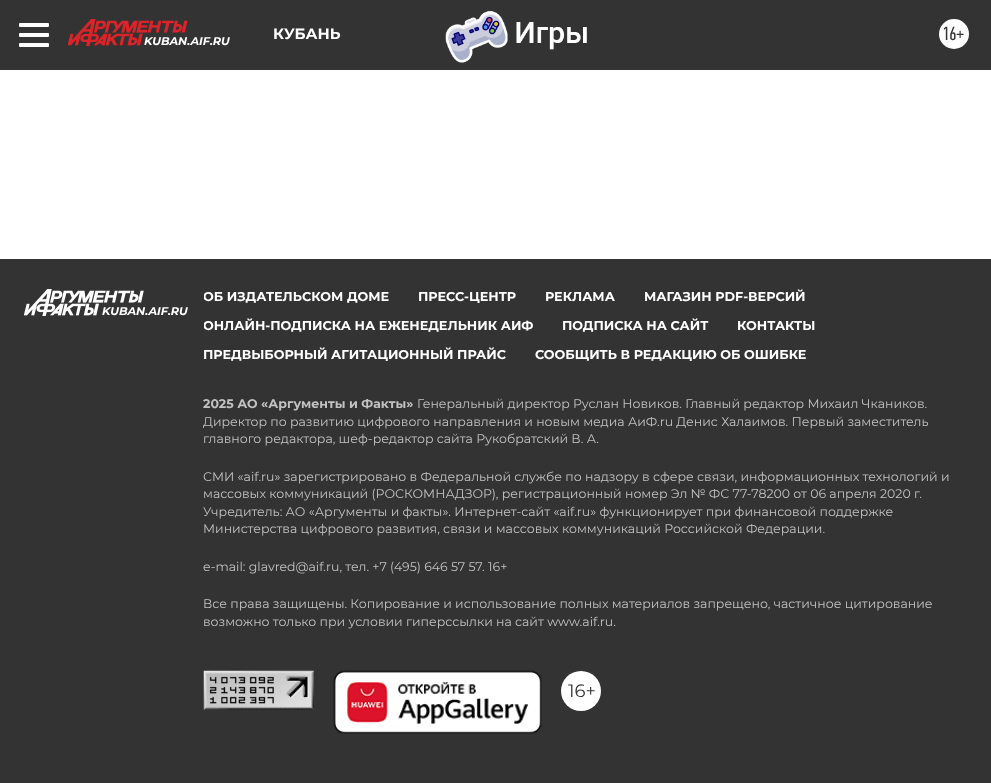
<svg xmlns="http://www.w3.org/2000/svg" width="991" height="783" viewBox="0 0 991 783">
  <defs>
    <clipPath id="clip1"><path d="M204 289h767v87H204z"/></clipPath>
  </defs>
  <rect width="100%" height="100%" fill="#fff"/>
  <path d="M0 0h991v70H0z" fill="#333"/>
  <rect x="19" y="23" width="30" height="4" rx="1" fill="#fff"/>
  <rect x="19" y="33" width="30" height="4" rx="1" fill="#fff"/>
  <rect x="19" y="43" width="30" height="4" rx="1" fill="#fff"/>
  <image x="445" y="11" width="142" height="52" href="img/1.png"/>
  <circle cx="954" cy="34" r="15" fill="#fff"/>
  <image x="68" y="19" width="120" height="27" href="img/2.png"/>
  <path d="M0 259h991v524H0z" fill="#333"/>
  <image x="24" y="289" width="120" height="27" href="img/3.png"/>
  <image x="203" y="670" width="111" height="40" href="img/4.png"/>
  <image x="333" y="670" width="209" height="64" href="img/5.png"/>
  <circle cx="581" cy="691" r="20" fill="#fff"/>
  <text x="273" y="39" font-family="Montserrat" font-size="15" font-weight="bold" fill="#fff">КУБАНЬ</text>
  <text x="942" y="40" font-family="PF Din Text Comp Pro" font-size="19" fill="#333">16+</text>
  <g font-family="Montserrat" font-size="11.25" font-weight="bold" font-style="italic" fill="#fff">
    <text x="144" y="45">KUBAN.AIF.RU</text>
    <text x="102" y="315">KUBAN.AIF.RU</text>
  </g>
  <g clip-path="url(#clip1)">
    <text x="203" y="301" font-family="Montserrat" font-size="12.75" font-weight="bold" fill="#fff">ОБ ИЗДАТЕЛЬСКОМ ДОМЕ</text>
  </g>
  <g font-family="Montserrat" font-size="12.75" font-weight="bold" fill="#fff">
    <text x="418" y="301">ПРЕСС-ЦЕНТР</text>
    <text x="545" y="301">РЕКЛАМА</text>
    <text x="644" y="301">МАГАЗИН PDF-ВЕРСИЙ</text>
  </g>
  <g clip-path="url(#clip1)">
    <text x="203" y="330" font-family="Montserrat" font-size="12.75" font-weight="bold" fill="#fff">ОНЛАЙН-ПОДПИСКА НА ЕЖЕНЕДЕЛЬНИК АИФ</text>
  </g>
  <g font-family="Montserrat" font-size="12.75" font-weight="bold" fill="#fff">
    <text x="562" y="330">ПОДПИСКА НА САЙТ</text>
    <text x="737" y="330">КОНТАКТЫ</text>
    <text x="203" y="359">ПРЕДВЫБОРНЫЙ АГИТАЦИОННЫЙ ПРАЙС</text>
    <text x="535" y="359">СООБЩИТЬ В РЕДАКЦИЮ ОБ ОШИБКЕ</text>
  </g>
  <text x="203" y="408" font-family="Montserrat" font-size="12.5" font-weight="bold" fill="#c2c2c2">2025 АО «Аргументы и Факты»</text>
  <g font-family="Montserrat" font-size="12.5" fill="#c2c2c2">
    <text x="417" y="408">Генеральный директор Руслан Новиков. Главный редактор Михаил Чкаников.</text>
    <text x="203" y="426">Директор по развитию цифрового направления и новым медиа АиФ.ru Денис Халаимов. Первый заместитель</text>
    <text x="203" y="443">главного редактора, шеф-редактор сайта Рукобратский В. А.</text>
    <text x="203" y="481">СМИ «aif.ru» зарегистрировано в Федеральной службе по надзору в сфере связи, информационных технологий и</text>
    <text x="203" y="498">массовых коммуникаций (РОСКОМНАДЗОР), регистрационный номер Эл № ФС 77-78200 от 06 апреля 2020 г.</text>
    <text x="203" y="516">Учредитель: АО «Аргументы и факты». Интернет-сайт «aif.ru» функционирует при финансовой поддержке</text>
    <text x="203" y="533">Министерства цифрового развития, связи и массовых коммуникаций Российской Федерации.</text>
    <text x="203" y="571">e-mail: glavred@aif.ru, тел. +7 (495) 646 57 57. 16+</text>
    <text x="203" y="608">Все права защищены. Копирование и использование полных материалов запрещено, частичное цитирование</text>
    <text x="203" y="626">возможно только при условии гиперссылки на сайт www.aif.ru.</text>
  </g>
  <text x="568" y="697" font-family="Montserrat" font-size="18" fill="#333">16+</text>
</svg>
